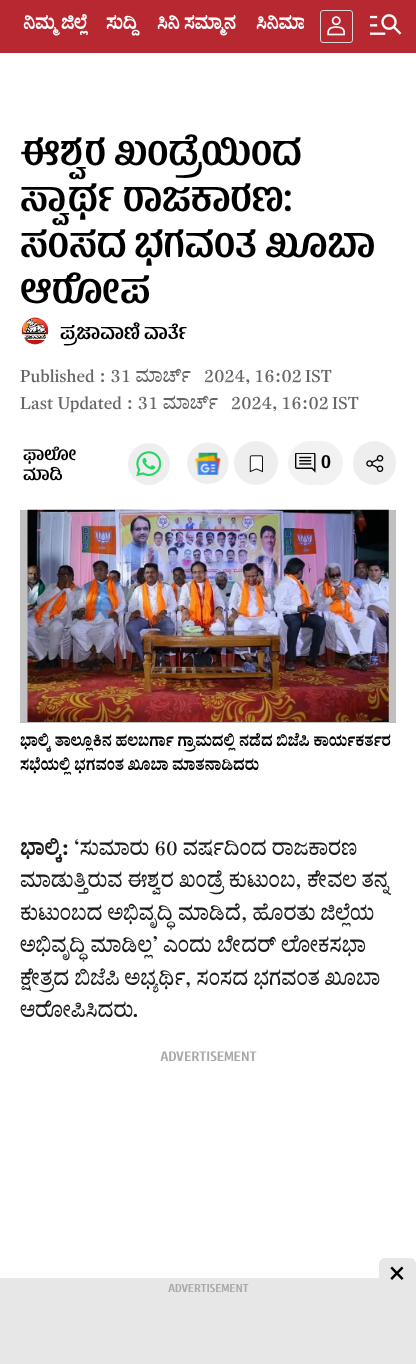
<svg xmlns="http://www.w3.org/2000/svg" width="416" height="1364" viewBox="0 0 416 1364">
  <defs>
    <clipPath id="clip1"><path d="M13 8h291v37H13z"/></clipPath>
    <clipPath id="clip2"><path d="M20 23h376v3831H20z"/></clipPath>
  </defs>
  <rect width="100%" height="100%" fill="#fff"/>
  <path d="M0 0h416v53H0z" fill="#b82831"/>
  <rect x="320.5" y="10.5" width="32" height="32" rx="2.5" fill="none" stroke="#d9d9d9"/>
  <image x="327" y="16" width="18" height="20" href="img/1.png"/>
  <image x="370" y="14" width="32" height="21" href="img/2.png"/>
  <path d="M0 1278h416v86H0z" fill="#e7e7e7"/>
  <rect x="379" y="1258" width="37" height="25" rx="6" fill="#e7e7e7"/>
  <image x="21" y="317" width="28" height="28" href="img/3.png"/>
  <circle cx="149" cy="464" r="21" fill="#eee"/>
  <image x="136" y="451" width="25" height="25" href="img/4.png"/>
  <image x="187" y="442" width="42" height="42" href="img/5.png"/>
  <circle cx="256" cy="463" r="22" fill="#eee"/>
  <image x="249" y="455" width="14" height="18" href="img/6.png"/>
  <rect x="288.5" y="441.5" width="54" height="43" rx="21.5" fill="#f2f2f2" stroke="#f2f2f2"/>
  <image x="295" y="453" width="21" height="20" href="img/7.png"/>
  <rect x="353" y="441" width="43" height="44" rx="21.5" fill="#eee"/>
  <image x="366" y="455" width="18" height="17" href="img/8.png"/>
  <path d="M20 510h376v213H20z" fill="#c0c0c0"/>
  <image x="27" y="509" width="362" height="213" href="img/9.png"/>
  <g font-family="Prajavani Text" font-size="17.5" font-weight="bold" fill="#fff">
    <text x="23" y="29">ನಿಮ್ಮ ಜಿಲ್ಲೆ</text>
    <text x="106" y="29">ಸುದ್ದಿ</text>
    <text x="157" y="29">ಸಿನಿ ಸಮ್ಮಾನ</text>
  </g>
  <g clip-path="url(#clip1)">
    <text x="256" y="29" font-family="Prajavani Text" font-size="17.5" font-weight="bold" fill="#fff">ಸಿನಿಮಾ</text>
  </g>
  <text x="389" y="1283" font-family="Roboto" font-size="30" fill="#000">×</text>
  <text x="168" y="1292" font-family="'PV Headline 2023'" font-size="12.5" font-weight="600" fill="#a9a9a9">ADVERTISEMENT</text>
  <text x="20" y="165" font-family="'PV Headline 2023'" font-size="40" font-weight="600" fill="#000">ಈಶ್ವರ ಖಂಡ್ರೆಯಿಂದ</text>
  <g clip-path="url(#clip2)">
    <text x="20" y="211" font-family="'PV Headline 2023'" font-size="40" font-weight="600" fill="#000">ಸ್ವಾರ್ಥ ರಾಜಕಾರಣ:</text>
  </g>
  <g font-family="'PV Headline 2023'" font-size="40" font-weight="600" fill="#000">
    <text x="20" y="257">ಸಂಸದ ಭಗವಂತ ಖೂಬಾ</text>
    <text x="20" y="303">ಆರೋಪ</text>
  </g>
  <text x="60" y="339" font-family="'PV Headline 2023'" font-size="20" font-weight="600" fill="#000">ಪ್ರಜಾವಾಣಿ ವಾರ್ತೆ</text>
  <g font-family="Prajavani Text" font-size="17.5" fill="#666">
    <text x="20" y="382">Published : 31 ಮಾರ್ಚ್</text>
    <text x="204" y="382">2024,</text>
    <text x="254" y="382">16:02</text>
    <text x="305" y="382">IST</text>
    <text x="20" y="409">Last Updated : 31 ಮಾರ್ಚ್</text>
    <text x="231" y="409">2024,</text>
    <text x="281" y="409">16:02</text>
    <text x="332" y="409">IST</text>
  </g>
  <g font-family="'PV Headline 2023'" font-size="17.5" font-weight="600" fill="#000">
    <text x="23" y="460">ಫಾಲೋ</text>
    <text x="23" y="480">ಮಾಡಿ</text>
  </g>
  <text x="321" y="468" font-family="'PV Headline 2023'" font-size="20" font-weight="600" fill="#000">0</text>
  <g font-family="Prajavani Text" font-size="15" font-weight="600" fill="#000">
    <text x="20" y="746">ಭಾಲ್ಕಿ ತಾಲ್ಲೂಕಿನ ಹಲಬರ್ಗಾ ಗ್ರಾಮದಲ್ಲಿ ನಡೆದ ಬಿಜೆಪಿ ಕಾರ್ಯಕರ್ತರ</text>
    <text x="20" y="770">ಸಭೆಯಲ್ಲಿ ಭಗವಂತ ಖೂಬಾ ಮಾತನಾಡಿದರು</text>
  </g>
  <text x="20" y="855" font-family="Prajavani Text" font-size="20" font-weight="bold" fill="#191b1d">ಭಾಲ್ಕಿ:</text>
  <g font-family="Prajavani Text" font-size="20" fill="#191b1d">
    <text x="74" y="855">‘ಸುಮಾರು 60 ವರ್ಷದಿಂದ ರಾಜಕಾರಣ</text>
    <text x="20" y="887">ಮಾಡುತ್ತಿರುವ ಈಶ್ವರ ಖಂಡ್ರೆ ಕುಟುಂಬ, ಕೇವಲ ತನ್ನ</text>
    <text x="20" y="920">ಕುಟುಂಬದ ಅಭಿವೃದ್ಧಿ ಮಾಡಿದೆ, ಹೊರತು ಜಿಲ್ಲೆಯ</text>
    <text x="20" y="952">ಅಭಿವೃದ್ಧಿ ಮಾಡಿಲ್ಲ’ ಎಂದು ಬೀದರ್ ಲೋಕಸಭಾ</text>
    <text x="20" y="985">ಕ್ಷೇತ್ರದ ಬಿಜೆಪಿ ಅಭ್ಯರ್ಥಿ, ಸಂಸದ ಭಗವಂತ ಖೂಬಾ</text>
    <text x="20" y="1017">ಆರೋಪಿಸಿದರು.</text>
  </g>
  <text x="160" y="1061" font-family="'PV Headline 2023'" font-size="15" font-weight="600" fill="#a9a9a9">ADVERTISEMENT</text>
</svg>
